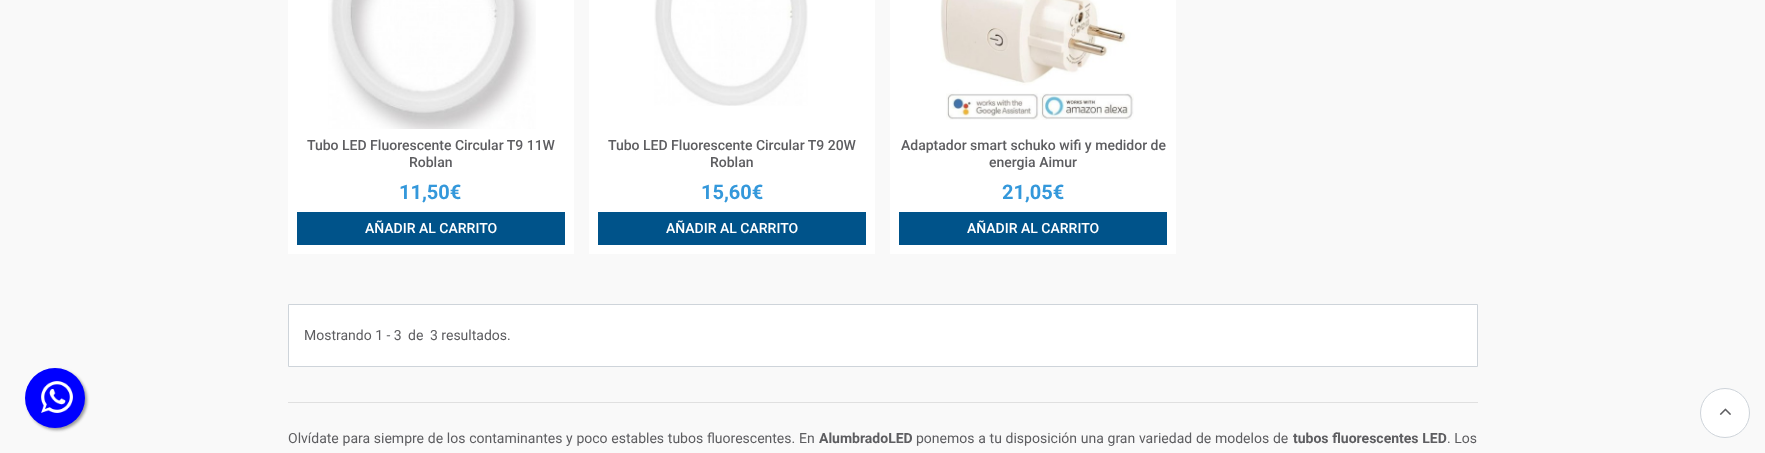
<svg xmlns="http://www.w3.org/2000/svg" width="1765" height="453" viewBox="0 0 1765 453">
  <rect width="100%" height="100%" fill="#f9f9f9"/>
  <rect x="27" y="370" width="60" height="60" rx="30" fill="#999" filter="blur(1.5px)"/>
  <circle cx="55" cy="398" r="30" fill="#00f"/>
  <image x="41" y="381" width="32" height="32" href="img/1.png"/>
  <path d="M288 0h286v254H288z" fill="#fff"/>
  <image x="328" y="0" width="208" height="129" href="img/2.png"/>
  <path d="M297 212h268v33H297z" fill="#00538a"/>
  <path d="M589 0h286v254H589z" fill="#fff"/>
  <image x="654" y="0" width="154" height="106" href="img/3.png"/>
  <path d="M598 212h268v33H598z" fill="#00538a"/>
  <path d="M890 0h286v254H890z" fill="#fff"/>
  <image x="940" y="0" width="194" height="120" href="img/4.png"/>
  <path d="M899 212h268v33H899z" fill="#00538a"/>
  <path d="M288.5 304.5h1189v62H288.5z" fill="#fff" stroke="#ced4da"/>
  <path d="M288 402h1190v1H288z" fill="#e0e0e0"/>
  <circle cx="1725" cy="413" r="24.5" fill="#fff" stroke="#ced4da"/>
  <image x="1719" y="408" width="12" height="7" href="img/5.png"/>
  <g font-family="Roboto" font-size="14" font-weight="500" fill="#5d5d60">
    <text x="307" y="150">Tubo LED Fluorescente Circular T9 11W</text>
    <text x="409" y="167">Roblan</text>
  </g>
  <text x="399" y="199" font-family="Roboto" font-size="20" font-weight="bold" fill="#3498db">11,50€</text>
  <text x="365" y="233" font-family="Roboto" font-size="14" font-weight="500" fill="#fff">AÑADIR AL CARRITO</text>
  <g font-family="Roboto" font-size="14" font-weight="500" fill="#5d5d60">
    <text x="608" y="150">Tubo LED Fluorescente Circular T9 20W</text>
    <text x="710" y="167">Roblan</text>
  </g>
  <text x="701" y="199" font-family="Roboto" font-size="20" font-weight="bold" fill="#3498db">15,60€</text>
  <text x="666" y="233" font-family="Roboto" font-size="14" font-weight="500" fill="#fff">AÑADIR AL CARRITO</text>
  <g font-family="Roboto" font-size="14" font-weight="500" fill="#5d5d60">
    <text x="901" y="150">Adaptador smart schuko wifi y medidor de</text>
    <text x="989" y="167">energia Aimur</text>
  </g>
  <text x="1002" y="199" font-family="Roboto" font-size="20" font-weight="bold" fill="#3498db">21,05€</text>
  <text x="967" y="233" font-family="Roboto" font-size="14" font-weight="500" fill="#fff">AÑADIR AL CARRITO</text>
  <g font-family="Roboto" font-size="14" fill="#5d5d60">
    <text x="304" y="340">Mostrando 1 - 3</text>
    <text x="408" y="340">de</text>
    <text x="430" y="340">3 resultados.</text>
    <text x="288" y="443" word-spacing="0.25">Olvídate para siempre de los contaminantes y poco estables tubos fluorescentes. En</text>
  </g>
  <text x="819" y="443" font-family="Roboto" font-size="14" font-weight="bold" fill="#5d5d60">AlumbradoLED</text>
  <text x="916" y="443" word-spacing="0.25" font-family="Roboto" font-size="14" fill="#5d5d60">ponemos a tu disposición una gran variedad de modelos de</text>
  <text x="1293" y="443" word-spacing="0.25" font-family="Roboto" font-size="14" font-weight="bold" fill="#5d5d60">tubos fluorescentes LED</text>
  <text x="1447" y="443" font-family="Roboto" font-size="14" fill="#5d5d60">. Los</text>
</svg>
